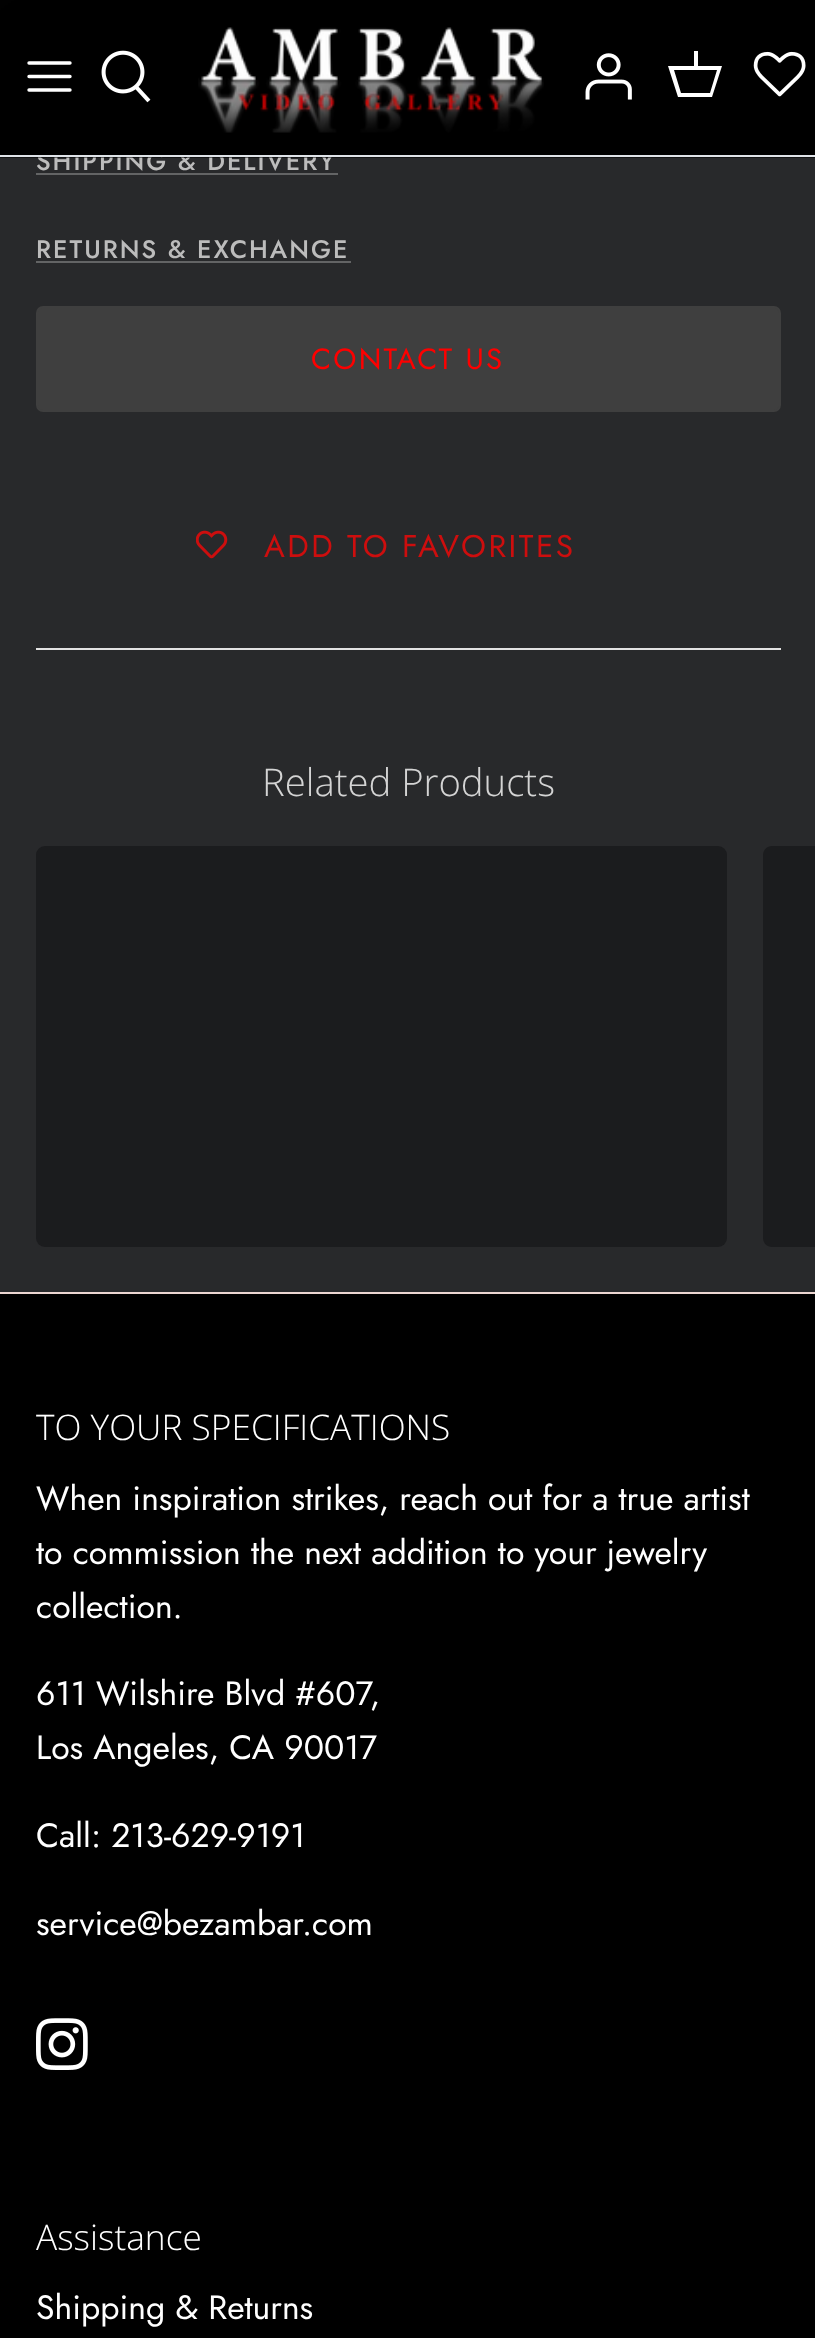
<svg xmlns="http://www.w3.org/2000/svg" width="815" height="2338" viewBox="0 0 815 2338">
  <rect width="100%" height="100%" fill="#28292b"/>
  <path d="M36 173h302v2H36z" fill="#636465"/>
  <path d="M36 261h315v2H36z" fill="#636465"/>
  <rect x="37" y="307" width="743" height="104" rx="6" fill="#3f3f3f" stroke="#3f3f3f" stroke-width="2"/>
  <image x="196" y="530" width="32" height="29" href="img/6.png"/>
  <path d="M36 648h745v2H36z" fill="#e2e2e2"/>
  <rect x="36" y="846" width="691" height="401" rx="9" fill="#1b1c1e"/>
  <path d="M772 846H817V1247H772C767 1247 763 1243 763 1238V855C763 850 767 846 772 846Z" fill="#1b1c1e"/>
  <path d="M0 1294h815v1044H0z" fill="#000"/>
  <path d="M0 1292h815v2H0z" fill="#ecd6d1"/>
  <image x="36" y="2018" width="52" height="52" href="img/7.png"/>
  <text x="36" y="170" font-family="Jost" font-size="25.25" font-weight="500" letter-spacing="2" fill="#bcbcbc">SHIPPING &amp; DELIVERY</text>
  <image x="0" y="0" width="815" height="158" href="img/1.png"/>
  <image x="753" y="51" width="53" height="46" href="img/5.png"/>
  <path d="M694 66V51H698V66H722L712 97H678L668 66ZM674 70L681 93H710L717 70Z" fill="#fff"/>
  <image x="101" y="50" width="50" height="53" href="img/2.png"/>
  <path d="M29 76.5H70M29 63H70M29 90H70" fill="none" stroke="#fff" stroke-width="3.4" stroke-linecap="round" stroke-linejoin="round"/>
  <image x="585" y="53" width="47" height="47" href="img/4.png"/>
  <image x="198" y="27" width="346" height="106" href="img/3.png"/>
  <path d="M0 155h815v2H0z" fill="#dfe3e8"/>
  <text x="36" y="258" font-family="Jost" font-size="25.25" font-weight="500" letter-spacing="2" fill="#bcbcbc">RETURNS &amp; EXCHANGE</text>
  <text x="311" y="369" font-family="Jost" font-size="29.25" letter-spacing="2.25" fill="#fe0000">CONTACT US</text>
  <text x="264" y="557" font-family="Jost" font-size="31.5" letter-spacing="2.5" fill="#cd0e0e">ADD TO FAVORITES</text>
  <text x="262" y="796" font-family="Open Sans" font-size="38.25" font-weight="300" fill="#d4d4d4">Related Products</text>
  <text x="36" y="1440" font-family="Open Sans" font-size="35.25" font-weight="300" fill="#fff">TO YOUR SPECIFICATIONS</text>
  <g font-family="Jost" font-size="33.75" fill="#fff">
    <text x="36" y="1510">When inspiration strikes, reach out for a true artist</text>
    <text x="36" y="1564">to commission the next addition to your jewelry</text>
    <text x="36" y="1618">collection.</text>
    <text x="36" y="1705">611 Wilshire Blvd #607,</text>
    <text x="36" y="1759">Los Angeles, CA 90017</text>
    <text x="36" y="1847">Call: 213-629-9191</text>
    <text x="36" y="1935">service@bezambar.com</text>
  </g>
  <text x="36" y="2250" font-family="Open Sans" font-size="35.25" font-weight="300" fill="#fff">Assistance</text>
  <text x="36" y="2319" font-family="Jost" font-size="33.75" fill="#fff">Shipping &amp; Returns</text>
</svg>
